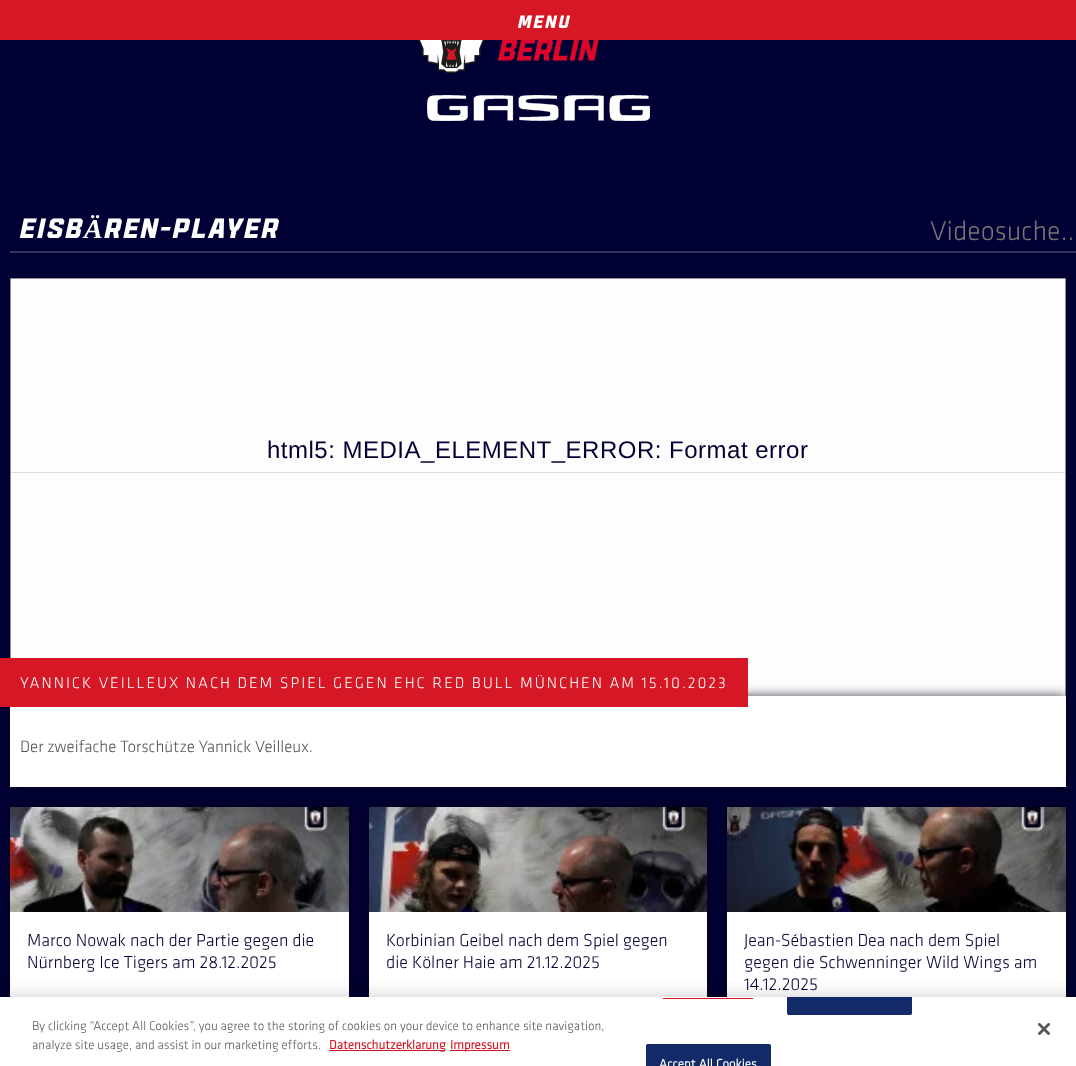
<svg xmlns="http://www.w3.org/2000/svg" width="1076" height="1066" viewBox="0 0 1076 1066">
  <defs>
    <clipPath id="clip1"><path d="M0 997h1076v69H0z"/></clipPath>
  </defs>
  <rect width="100%" height="100%" fill="#000034"/>
  <path d="M0 0h1076v40H0z" fill="#d61825"/>
  <image x="418" y="40" width="181" height="33" href="img/1.png"/>
  <image x="427" y="95" width="223" height="26" href="img/2.png"/>
  <path d="M10 251h1066v2H10z" fill="#33335d"/>
  <path d="M11 279h1054v417H11z" fill="#fdfdfd"/>
  <path d="M10.5 278.5h1055v440H10.5z" fill="none" stroke="#909090"/>
  <path d="M11 472h1054v1H11z" fill="#dcdcdc"/>
  <path d="M10 696h1056v91H10z" fill="#060213bf" filter="blur(6px)"/>
  <path d="M10 696h1056v91H10z" fill="#fff"/>
  <path d="M0 658h748v49H0z" fill="#d61725"/>
  <path d="M10 807h339v220H10z" fill="#060213bf" filter="blur(6px)"/>
  <image x="10" y="807" width="339" height="105" href="img/3.png"/>
  <path d="M10 912h339v85H10z" fill="#fff"/>
  <path d="M369 807h338v220H369z" fill="#060213bf" filter="blur(6px)"/>
  <image x="369" y="807" width="338" height="105" href="img/4.png"/>
  <path d="M369 912h338v85H369z" fill="#fff"/>
  <path d="M727 807h339v220H727z" fill="#060213bf" filter="blur(6px)"/>
  <image x="727" y="807" width="339" height="105" href="img/5.png"/>
  <path d="M727 912h339v85H727z" fill="#fff"/>
  <path d="M0 997h1076v69H0z" fill="#00000033" filter="blur(9px)"/>
  <path d="M0 997h1076v69H0z" fill="#fff"/>
  <path d="M329 1050h116v1H329z" fill="#d61825"/>
  <path d="M450 1050h60v1H450z" fill="#d61825"/>
  <path d="M663 998h90v1H663z" fill="#d61825"/>
  <path d="M787 997H912V1013C912 1014 911 1015 910 1015H789C788 1015 787 1014 787 1013Z" fill="#132a69"/>
  <path d="M648 1044H769C770 1044 771 1045 771 1046V1066H646V1046C646 1045 647 1044 648 1044Z" fill="#132a69"/>
  <rect x="646.5" y="1044.5" width="124" height="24" rx="1.5" fill="none" stroke="#132a69"/>
  <image x="1038" y="1023" width="12" height="12" href="img/6.png"/>
  <text x="518" y="28" font-family="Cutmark" font-size="18" font-weight="600" font-style="italic" letter-spacing="2" fill="#fff">MENU</text>
  <text x="20" y="238" font-family="Cutmark" font-size="28" font-weight="600" font-style="italic" letter-spacing="2" fill="#fff">EISBÄREN-PLAYER</text>
  <text x="930" y="240" font-family="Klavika" font-size="28" font-weight="300" fill="#757575">Videosuche..</text>
  <text x="267" y="458" font-family="Liberation Sans" font-size="24" letter-spacing="0.5" fill="#000034">html5: MEDIA_ELEMENT_ERROR: Format error</text>
  <text x="20" y="688" font-family="Klavika" font-size="16" font-weight="300" letter-spacing="2" fill="#fff">YANNICK VEILLEUX NACH DEM SPIEL GEGEN EHC RED BULL MÜNCHEN AM 15.10.2023</text>
  <text x="20" y="752" font-family="Klavika" font-size="17" font-weight="300" fill="#555">Der zweifache Torschütze Yannick Veilleux.</text>
  <g font-family="Klavika" font-size="18" font-weight="300" fill="#000034">
    <text x="27" y="946">Marco Nowak nach der Partie gegen die</text>
    <text x="27" y="968">Nürnberg Ice Tigers am 28.12.2025</text>
    <text x="386" y="946">Korbinian Geibel nach dem Spiel gegen</text>
    <text x="386" y="968">die Kölner Haie am 21.12.2025</text>
    <text x="744" y="946">Jean-Sébastien Dea nach dem Spiel</text>
    <text x="744" y="968">gegen die Schwenninger Wild Wings am</text>
    <text x="744" y="990">14.12.2025</text>
  </g>
  <g font-family="Klavika" font-size="13" font-weight="300" fill="#555">
    <text x="32" y="1030">By clicking “Accept All Cookies”, you agree to the storing of cookies on your device to enhance site navigation,</text>
    <text x="32" y="1049">analyze site usage, and assist in our marketing efforts.</text>
  </g>
  <g font-family="Klavika" font-size="13" font-weight="bold" fill="#d61825">
    <text x="329" y="1049">Datenschutzerklarung</text>
    <text x="450" y="1049">Impressum</text>
  </g>
  <g clip-path="url(#clip1)">
    <rect x="787.5" y="973.5" width="124" height="41" rx="1.5" fill="none" stroke="#132a69"/>
  </g>
  <text x="659" y="1068" font-family="Klavika" font-size="13" font-weight="bold" letter-spacing="0.1" fill="#fff">Accept All Cookies</text>
</svg>
